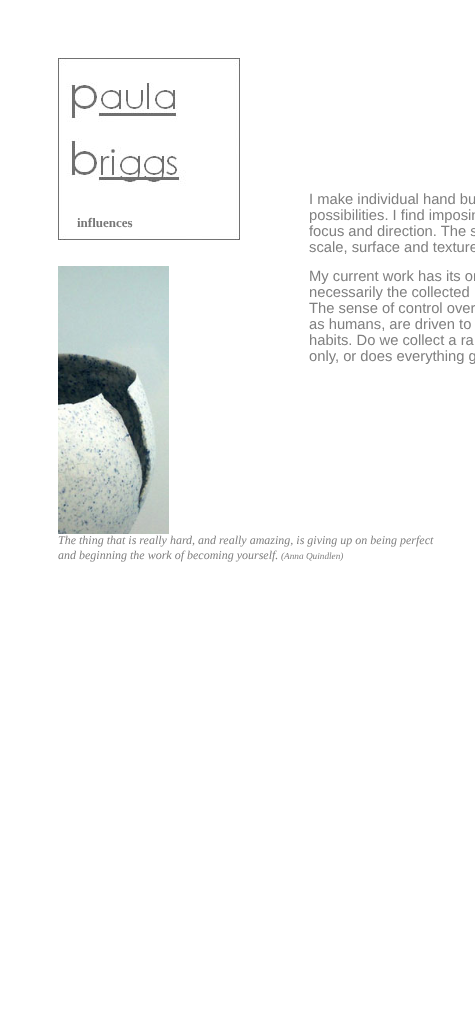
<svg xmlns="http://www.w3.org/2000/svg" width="475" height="1019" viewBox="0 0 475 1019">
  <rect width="100%" height="100%" fill="#fff"/>
  <image x="58" y="58" width="182" height="182" href="img/1.png"/>
  <image x="58" y="266" width="111" height="268" href="img/2.png"/>
  <text x="77" y="227" font-family="Liberation Serif" font-size="13" font-weight="bold" fill="#777">influences</text>
  <g font-family="Liberation Sans" font-size="14.75" fill="#7f7f7f">
    <text x="309" y="204">I make individual hand bu</text>
    <text x="309" y="220">possibilities. I find imposin</text>
    <text x="309" y="236">focus and direction. The s</text>
    <text x="309" y="252">scale, surface and texture</text>
    <text x="309" y="281">My current work has its or</text>
    <text x="309" y="297">necessarily the collected</text>
    <text x="309" y="313">The sense of control over</text>
    <text x="309" y="329">as humans, are driven to</text>
    <text x="309" y="345">habits. Do we collect a ra</text>
    <text x="309" y="361">only, or does everything g</text>
  </g>
  <g font-family="Liberation Serif" font-size="12" font-style="italic" fill="#7f7f7f">
    <text x="58" y="544">The thing that is really hard, and really amazing, is giving up on being perfect</text>
    <text x="58" y="559">and beginning the work of becoming yourself.</text>
  </g>
  <text x="281" y="559" font-family="Liberation Serif" font-size="9.25" font-style="italic" fill="#7f7f7f">(Anna Quindlen)</text>
</svg>
